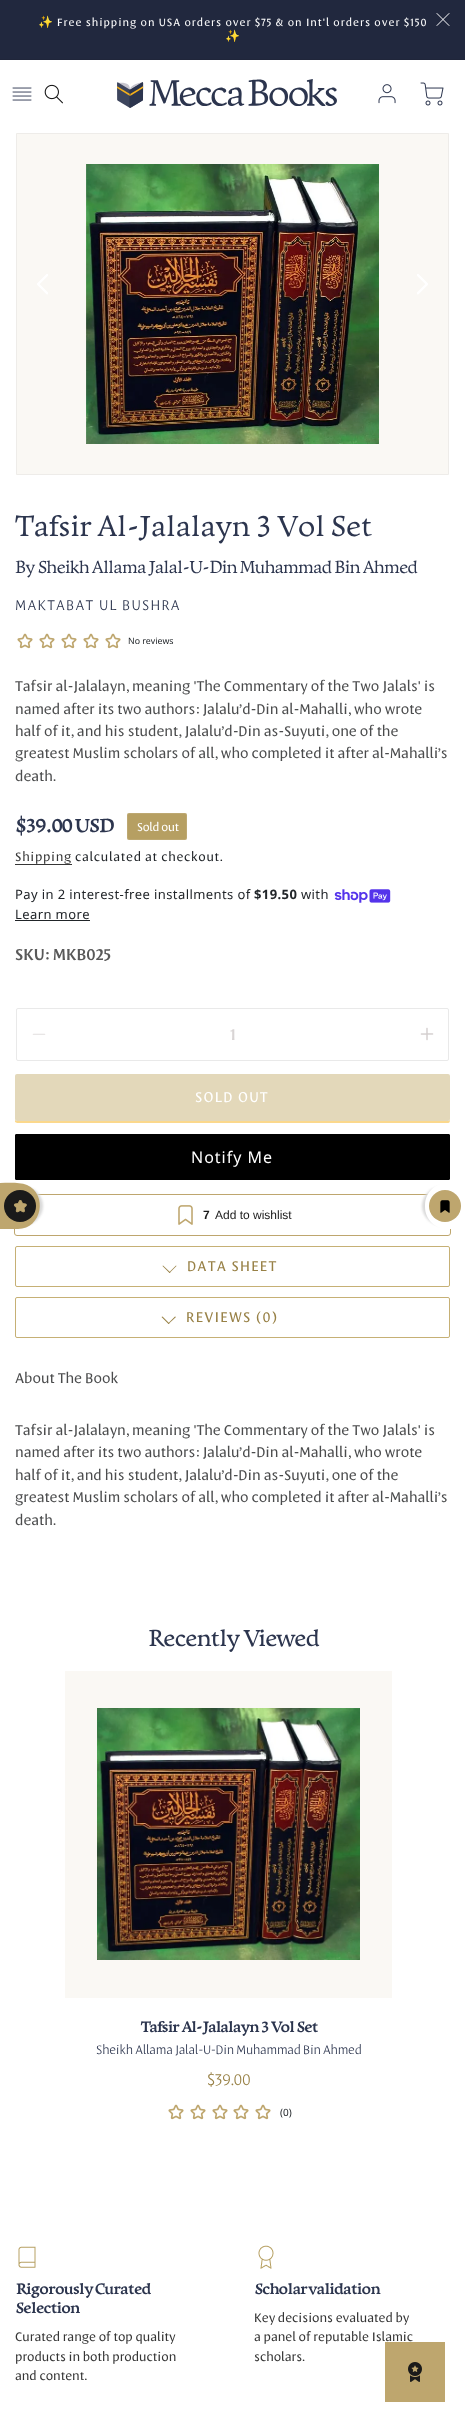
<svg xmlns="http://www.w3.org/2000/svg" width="465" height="2412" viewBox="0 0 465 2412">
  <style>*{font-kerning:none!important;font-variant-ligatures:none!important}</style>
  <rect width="100%" height="100%" fill="#fff"/>
  <path d="M0 0h465v59H0z" fill="#21283e"/>
  <path d="M0 59h465v1H0z" fill="#20263a"/>
  <path d="M449 13.5L437 25.5M437 13.5L449 25.5" fill="none" stroke="#fff" stroke-linecap="round" stroke-linejoin="round"/>
  <image x="12" y="87" width="20" height="14" href="img/1.png"/>
  <image x="44" y="84" width="19" height="20" href="img/2.png"/>
  <image x="117" y="79" width="220" height="29" href="img/3.png"/>
  <image x="378" y="84" width="18" height="20" href="img/4.png"/>
  <image x="420" y="82" width="24" height="24" href="img/5.png"/>
  <path d="M16.5 133.5h432v341H16.5z" fill="#faf8f4" stroke="#eeece9"/>
  <image x="86" y="164" width="293" height="280" href="img/6.png"/>
  <image x="37" y="274" width="11" height="21" href="img/7.png"/>
  <image x="417" y="274" width="11" height="21" href="img/8.png"/>
  <image x="17" y="633" width="16" height="16" href="img/9.png"/>
  <image x="39" y="633" width="16" height="16" href="img/9.png"/>
  <image x="61" y="633" width="16" height="16" href="img/9.png"/>
  <image x="83" y="633" width="16" height="16" href="img/9.png"/>
  <image x="105" y="633" width="16" height="16" href="img/9.png"/>
  <rect x="127" y="813" width="60" height="27" rx="2" fill="#b69f62"/>
  <rect x="127.5" y="813.5" width="59" height="26" rx="1.5" fill="none" stroke="#ffffff1a"/>
  <path d="M15 864h57v1H15z" fill="#363636"/>
  <image x="334" y="889" width="57" height="14" href="img/10.png"/>
  <path d="M15 920h75v1H15z" fill="#212529"/>
  <image x="32" y="1033" width="14" height="2" href="img/11.png"/>
  <image x="420" y="1027" width="14" height="14" href="img/12.png"/>
  <rect x="16.5" y="1008.5" width="432" height="52" rx="1.5" fill="none" stroke="#e9e9e9"/>
  <path d="M15 1119V1122L17 1123H448C450 1123 450 1121 450 1119C450 1120 449 1121 448 1121H17C16 1121 15 1120 15 1119Z" fill="#fbd88c"/>
  <rect x="15" y="1074" width="435" height="47" rx="2" fill="#e3d8ba"/>
  <rect x="15.5" y="1134.5" width="434" height="45" rx="0.5" fill="#000" stroke="#000"/>
  <rect x="14.5" y="1194.5" width="436" height="41" rx="2.5" fill="none" stroke="#bea66e"/>
  <image x="178" y="1205" width="15" height="20" href="img/13.png"/>
  <rect x="15.5" y="1246.5" width="434" height="40" rx="1.5" fill="none" stroke="#c6b075"/>
  <path d="M176.5 1266L169.5 1273L169 1272.5L176 1265.5Z" fill="#988146"/>
  <path d="M170.5 1272.5L169.5 1273L162.5 1266L163 1265.5Z" fill="#988146"/>
  <rect x="15.5" y="1297.5" width="434" height="40" rx="1.5" fill="none" stroke="#c6b075"/>
  <path d="M176 1317L168.5 1324L168 1323.5L175 1316.5Z" fill="#988146"/>
  <path d="M169.5 1323.5L168.5 1324L161.5 1317L162.5 1316.5Z" fill="#988146"/>
  <path d="M65 1671h327v327H65z" fill="#faf8f4"/>
  <image x="97" y="1708" width="263" height="252" href="img/14.png"/>
  <image x="168" y="2104" width="16" height="16" href="img/9.png"/>
  <image x="190" y="2104" width="16" height="16" href="img/9.png"/>
  <image x="212" y="2104" width="16" height="16" href="img/9.png"/>
  <image x="233" y="2104" width="16" height="16" href="img/9.png"/>
  <image x="255" y="2104" width="16" height="16" href="img/9.png"/>
  <rect x="-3" y="1186" width="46" height="40" rx="22" fill="#dadada" filter="blur(1px)"/>
  <path d="M0 1229V1183C8 1183 19 1182 27 1185C48 1194 42 1229 18 1229Z" fill="#bea66e"/>
  <circle cx="20" cy="1206" r="16" fill="#1a1a1a"/>
  <image x="13" y="1200" width="14" height="13" href="img/15.png"/>
  <rect x="422" y="1186" width="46" height="40" rx="22" fill="#dadada" filter="blur(1px)"/>
  <path d="M425 1207V1205C425 1193 435 1183 447 1183H465V1229H447C435 1229 425 1219 425 1207Z" fill="#fff"/>
  <circle cx="445" cy="1206" r="16" fill="#bea66e"/>
  <image x="440" y="1200" width="10" height="13" href="img/16.png"/>
  <image x="18" y="2246" width="18" height="22" href="img/18.png"/>
  <image x="258" y="2245" width="16" height="24" href="img/19.png"/>
  <text x="38" y="26" font-family="Noto Color Emoji" font-size="12" letter-spacing="1" fill="#fff">✨</text>
  <text x="57" y="26" font-family="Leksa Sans" font-size="12" letter-spacing="1" fill="#fff">Free shipping on USA orders over $75 &amp; on Int'l orders over $150</text>
  <text x="225" y="40" font-family="Noto Color Emoji" font-size="12" letter-spacing="1" fill="#fff">✨</text>
  <text x="15" y="536" font-family="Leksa" font-size="30" letter-spacing="-0.5" fill="#2c354e">Tafsir Al-Jalalayn 3 Vol Set</text>
  <text x="15" y="573" font-family="Leksa" font-size="18" letter-spacing="-0.85" fill="#2c354e">By Sheikh Allama Jalal-U-Din Muhammad Bin Ahmed</text>
  <text x="15" y="610" font-family="Leksa Sans" font-size="16" font-weight="300" letter-spacing="1.25" fill="#2c354e">MAKTABAT</text>
  <text x="99" y="610" font-family="Leksa Sans" font-size="16" font-weight="300" letter-spacing="1.25" fill="#2c354e">UL BUSHRA</text>
  <text x="128" y="644" font-family="Noto Sans" font-size="8.75" fill="#212529">No reviews</text>
  <g font-family="Leksa Sans" font-size="16" fill="#4b4c4d">
    <text x="15" y="691">Tafsir al-Jalalayn, meaning 'The Commentary of the Two Jalals' is</text>
    <text x="15" y="714">named after its two authors: Jalalu’d-Din al-Mahalli, who wrote</text>
    <text x="15" y="736">half of it, and his student, Jalalu’d-Din as-Suyuti, one of the</text>
    <text x="15" y="758">greatest Muslim scholars of all, who completed it after al-Mahalli’s</text>
    <text x="15" y="781">death.</text>
  </g>
  <text x="15" y="832" font-family="Leksa" font-size="20" font-weight="bold" letter-spacing="-0.75" fill="#2c354e">$39.00 USD</text>
  <text x="137" y="831" font-family="Leksa Sans" font-size="13" letter-spacing="-0.25" fill="#fff">Sold out</text>
  <text x="15" y="861" font-family="Leksa Sans" font-size="14" letter-spacing="0.7" fill="#363636">Shipping</text>
  <text x="75" y="861" font-family="Leksa Sans" font-size="14" letter-spacing="0.7" fill="#212529">calculated at checkout.</text>
  <text x="15" y="899" font-family="Noto Sans" font-size="13" letter-spacing="0.4" fill="#212529">Pay in 2 interest-free installments of</text>
  <text x="254" y="899" font-family="Noto Sans" font-size="13" font-weight="bold" letter-spacing="0.4" fill="#212529">$19.50</text>
  <g font-family="Noto Sans" font-size="13" letter-spacing="0.4" fill="#212529">
    <text x="301" y="899">with</text>
    <text x="15" y="919">Learn more</text>
  </g>
  <text x="15" y="960" font-family="Leksa Sans" font-size="18" font-weight="600" fill="#595959">SKU: MKB025</text>
  <text x="230" y="1040" font-family="Leksa Sans" font-size="18" font-weight="600" fill="#d9d5d5">1</text>
  <text x="195" y="1102" font-family="Leksa Sans" font-size="16" letter-spacing="1.25" fill="#fff">SOLD OUT</text>
  <text x="191" y="1163" font-family="Noto Sans" font-size="16" letter-spacing="1" fill="#fff">Notify Me</text>
  <text x="203" y="1219" font-family="Liberation Sans" font-size="12" font-weight="bold" fill="#1a1a1a">7</text>
  <text x="215" y="1219" font-family="Liberation Sans" font-size="12" fill="#1a1a1a">Add to wishlist</text>
  <g font-family="Leksa Sans" font-size="16" letter-spacing="1.25" fill="#988146">
    <text x="187" y="1271">DATA SHEET</text>
    <text x="186" y="1322">REVIEWS (0)</text>
  </g>
  <g font-family="Leksa Sans" font-size="16" fill="#4b4c4d">
    <text x="15" y="1383">About The Book</text>
    <text x="15" y="1435">Tafsir al-Jalalayn, meaning 'The Commentary of the Two Jalals' is</text>
    <text x="15" y="1457">named after its two authors: Jalalu’d-Din al-Mahalli, who wrote</text>
    <text x="15" y="1480">half of it, and his student, Jalalu’d-Din as-Suyuti, one of the</text>
    <text x="15" y="1502">greatest Muslim scholars of all, who completed it after al-Mahalli’s</text>
    <text x="15" y="1525">death.</text>
  </g>
  <text x="147" y="1646" font-family="Leksa" font-size="24" font-weight="600" letter-spacing="-0.85" fill="#2c354e">Recently Viewed</text>
  <text x="140" y="2032" font-family="'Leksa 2'" font-size="16" font-weight="bold" letter-spacing="-0.8" fill="#2c354e">Tafsir Al-Jalalayn 3 Vol Set</text>
  <text x="96" y="2054" font-family="Leksa Sans" font-size="14" font-weight="300" letter-spacing="-0.2" fill="#2c354e">Sheikh Allama Jalal-U-Din Muhammad Bin Ahmed</text>
  <text x="207" y="2085" font-family="Leksa Sans" font-size="18" font-weight="300" letter-spacing="-0.25" fill="#988146">$39.00</text>
  <text x="280" y="2116" font-family="Noto Sans" font-size="10" fill="#212529">(0)</text>
  <g font-family="'Leksa 2'" font-size="16" font-weight="bold" letter-spacing="-0.6" fill="#2c354e">
    <text x="15" y="2294" word-spacing="-1">Rigorously Curated</text>
    <text x="15" y="2313">Selection</text>
  </g>
  <g font-family="Leksa Sans" font-size="14" fill="#363636">
    <text x="15" y="2341">Curated range of top quality</text>
    <text x="15" y="2361">products in both production</text>
    <text x="15" y="2380">and content.</text>
  </g>
  <text x="254" y="2294" word-spacing="-1" font-family="'Leksa 2'" font-size="16" font-weight="bold" letter-spacing="-0.6" fill="#2c354e">Scholar validation</text>
  <g font-family="Leksa Sans" font-size="14" fill="#363636">
    <text x="254" y="2322">Key decisions evaluated by</text>
    <text x="254" y="2341">a panel of reputable Islamic</text>
  </g>
  <path d="M385 2342h60v60H385z" fill="#bea66e"/>
  <image x="408" y="2362" width="14" height="20" href="img/17.png"/>
  <text x="254" y="2361" font-family="Leksa Sans" font-size="14" fill="#363636">scholars.</text>
</svg>
